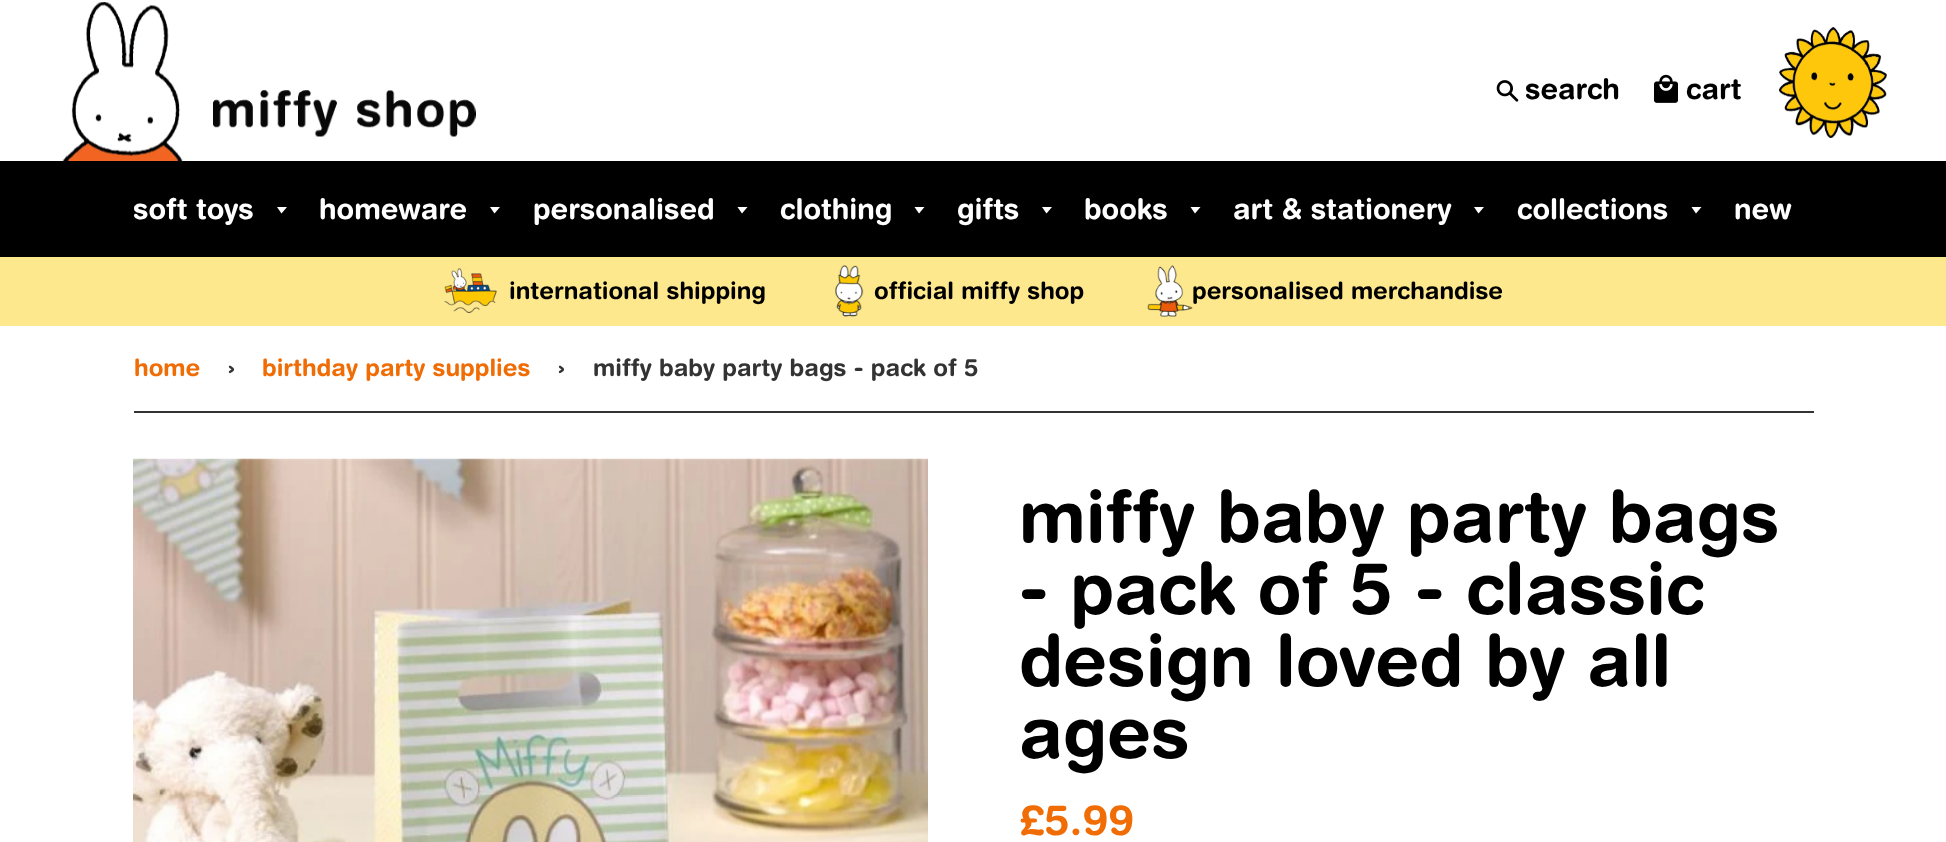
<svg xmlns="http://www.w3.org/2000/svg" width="1946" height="842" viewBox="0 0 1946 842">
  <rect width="100%" height="100%" fill="#fff"/>
  <image x="62" y="2" width="121" height="159" href="img/1.png"/>
  <image x="213" y="90" width="263" height="47" href="img/2.png"/>
  <image x="1496" y="80" width="23" height="22" href="img/3.png"/>
  <image x="1654" y="74" width="24" height="29" href="img/4.png"/>
  <image x="1779" y="27" width="108" height="111" href="img/5.png"/>
  <path d="M0 161h1946v96H0z" fill="#000"/>
  <path d="M277 207L281.5 213.5L287 207Z" fill="#fff"/>
  <path d="M490 207L494.5 213.5L500 207Z" fill="#fff"/>
  <path d="M737.5 207L742 213.5L747.5 207Z" fill="#fff"/>
  <path d="M914.5 207L919 213.5L924.5 207Z" fill="#fff"/>
  <path d="M1042 207L1046.5 213.5L1052 207Z" fill="#fff"/>
  <path d="M1190.5 207L1195 213.5L1200.5 207Z" fill="#fff"/>
  <path d="M1474 207L1478.5 213.5L1484 207Z" fill="#fff"/>
  <path d="M1691.5 207L1696 213.5L1701.5 207Z" fill="#fff"/>
  <path d="M0 257h1946v69H0z" fill="#fee88d"/>
  <image x="444" y="267" width="53" height="46" href="img/6.png"/>
  <image x="835" y="265" width="29" height="52" href="img/7.png"/>
  <image x="1147" y="265" width="46" height="52" href="img/8.png"/>
  <path d="M134 411h1680v2H134z" fill="#333"/>
  <image x="133" y="458" width="795" height="384" href="img/9.png"/>
  <g font-family="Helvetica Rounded" font-size="28.75" font-weight="bold" fill="#000">
    <text x="1525" y="99">search</text>
    <text x="1686" y="99">cart</text>
  </g>
  <g font-family="Helvetica Rounded" font-size="28.75" font-weight="bold" fill="#fff">
    <text x="133" y="219">soft toys</text>
    <text x="319" y="219">homeware</text>
    <text x="533" y="219">personalised</text>
    <text x="780" y="219">clothing</text>
    <text x="957" y="219">gifts</text>
    <text x="1084" y="219">books</text>
    <text x="1233" y="219">art &amp; stationery</text>
    <text x="1517" y="219">collections</text>
    <text x="1734" y="219">new</text>
  </g>
  <g font-family="Helvetica Rounded" font-size="24" font-weight="bold" fill="#000">
    <text x="509" y="299">international shipping</text>
    <text x="874" y="299">official miffy shop</text>
    <text x="1192" y="299">personalised merchandise</text>
  </g>
  <text x="134" y="376" font-family="Helvetica Rounded" font-size="24" font-weight="bold" fill="#f06c05">home</text>
  <text x="227" y="376" font-family="Helvetica Rounded" font-size="24" font-weight="bold" fill="#333">›</text>
  <text x="262" y="376" font-family="Helvetica Rounded" font-size="24" font-weight="bold" fill="#f06c05">birthday party supplies</text>
  <g font-family="Helvetica Rounded" font-size="24" font-weight="bold" fill="#333">
    <text x="557" y="376">›</text>
    <text x="593" y="376">miffy baby party bags - pack of 5</text>
  </g>
  <g font-family="Helvetica Rounded" font-size="72" font-weight="bold" fill="#000">
    <text x="1019" y="542">miffy baby party bags</text>
    <text x="1019" y="614">- pack of 5 - classic</text>
    <text x="1019" y="686">design loved by all</text>
    <text x="1019" y="758">ages</text>
  </g>
  <text x="1019" y="835" font-family="Helvetica Rounded" font-size="42" font-weight="bold" fill="#f06c05">£5.99</text>
</svg>
